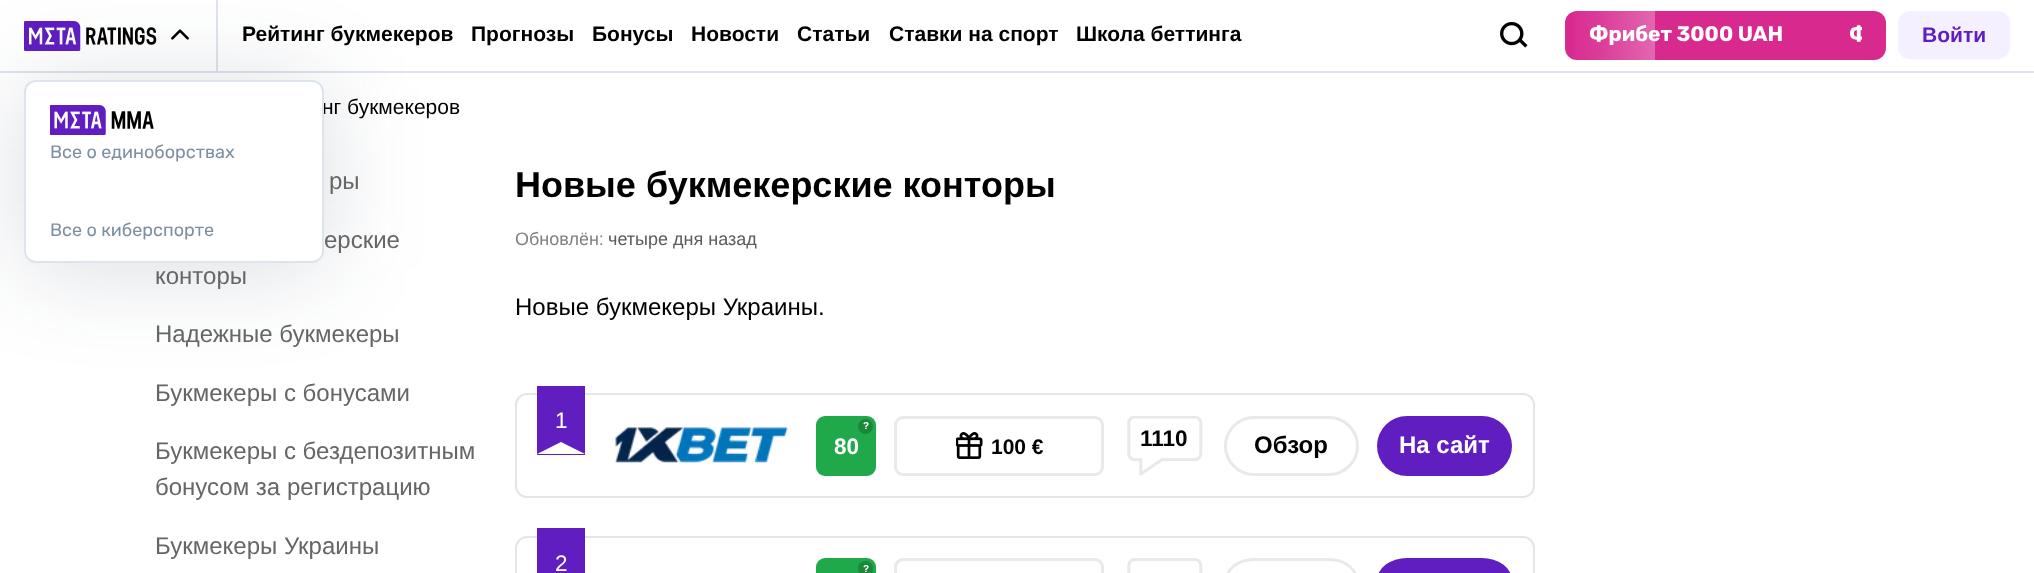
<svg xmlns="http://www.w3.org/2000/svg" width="2034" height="573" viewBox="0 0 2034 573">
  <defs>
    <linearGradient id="g1" gradientUnits="userSpaceOnUse" x1="1565" y1="35" x2="1655" y2="35"><stop offset="0" stop-color="#f9f8fd" stop-opacity="0"/><stop offset="0.41" stop-color="#f9f8fd" stop-opacity="0.1"/><stop offset="1" stop-color="#f9f8fd" stop-opacity="0.3"/></linearGradient>
    <clipPath id="clip1"><path d="M1589 23h273v25H1589z"/></clipPath>
  </defs>
  <rect width="100%" height="100%" fill="#fff"/>
  <path d="M0 71h2034v2H0z" fill="#dde4eb"/>
  <path d="M216 0h2v72H216z" fill="#dde4eb"/>
  <image x="24" y="21" width="133" height="30" href="img/1.png"/>
  <image x="171" y="29" width="18" height="11" href="img/2.png"/>
  <rect x="24" y="86" width="300" height="183" rx="12" fill="#1a2a4d29" filter="blur(48px)"/>
  <image x="1500" y="21" width="28" height="27" href="img/4.png"/>
  <rect x="1565" y="11" width="321" height="49" rx="12" fill="#d8298f"/>
  <path d="M1573 11h82v49H1573z" fill="url(#g1)"/>
  <rect x="1898" y="11" width="112" height="48" rx="12" fill="#f4f0ff"/>
  <rect x="516" y="394" width="1018" height="103" rx="11" fill="none" stroke="#e5e5e5" stroke-width="2"/>
  <path d="M537 386h48v69H537z" fill="#601dc0"/>
  <path d="M585 454H537L561 442Z" fill="#fff"/>
  <image x="615" y="427" width="173" height="36" href="img/5.png"/>
  <rect x="816" y="416" width="60" height="60" rx="9" fill="#20a94a"/>
  <circle cx="865.5" cy="426.5" r="7.5" fill="#1a873b"/>
  <rect x="895.5" y="417.5" width="207" height="57" rx="7.5" fill="none" stroke="#e9e9e9" stroke-width="3"/>
  <image x="956" y="432" width="27" height="27" href="img/6.png"/>
  <image x="1127" y="416" width="76" height="60" href="img/7.png"/>
  <rect x="1225.5" y="417.5" width="132" height="57" rx="28.5" fill="none" stroke="#e9e9e9" stroke-width="3"/>
  <rect x="1377" y="416" width="135" height="60" rx="30" fill="#601dc0"/>
  <rect x="516" y="537" width="1018" height="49" rx="11" fill="none" stroke="#e5e5e5" stroke-width="2"/>
  <path d="M537 528h48v45H537z" fill="#601dc0"/>
  <rect x="816" y="558" width="60" height="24" rx="9" fill="#20a94a"/>
  <circle cx="865.5" cy="568.5" r="7.5" fill="#1a873b"/>
  <rect x="895.5" y="559.5" width="207" height="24" rx="7.5" fill="none" stroke="#e9e9e9" stroke-width="3"/>
  <image x="1127" y="558" width="76" height="15" href="img/8.png"/>
  <rect x="1225.5" y="559.5" width="132" height="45" rx="28.5" fill="none" stroke="#e9e9e9" stroke-width="3"/>
  <rect x="1377" y="558" width="135" height="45" rx="30" fill="#601dc0"/>
  <g font-family="Liberation Sans" font-size="21" font-weight="bold" fill="#000">
    <text x="242" y="41">Рейтинг букмекеров</text>
    <text x="471" y="41">Прогнозы</text>
    <text x="592" y="41">Бонусы</text>
    <text x="691" y="41">Новости</text>
    <text x="797" y="41">Статьи</text>
    <text x="889" y="41">Ставки на спорт</text>
    <text x="1076" y="41">Школа беттинга</text>
  </g>
  <text x="1589" y="41" font-family="Rubik" font-size="21" font-weight="bold" fill="#fff">Фрибет 3000 UAH</text>
  <g clip-path="url(#clip1)">
    <text x="1849" y="41" font-family="Rubik" font-size="21" font-weight="bold" fill="#fff">Ф</text>
  </g>
  <text x="1922" y="42" font-family="Liberation Sans" font-size="21" font-weight="bold" fill="#601dc0">Войти</text>
  <text x="322" y="114" font-family="Liberation Sans" font-size="21" fill="#000">нг букмекеров</text>
  <rect x="25" y="81" width="298" height="181" rx="11" fill="#fff" stroke="#dde4eb" stroke-width="2"/>
  <image x="50" y="105" width="104" height="30" href="img/3.png"/>
  <g font-family="Rubik" font-size="18" fill="#7e8f9f">
    <text x="50" y="236">Все о киберспорте</text>
    <text x="50" y="158">Все о единоборствах</text>
  </g>
  <g font-family="Liberation Sans" font-size="24" fill="#666">
    <text x="329" y="189">ры</text>
    <text x="324" y="248">ерские</text>
    <text x="155" y="284">конторы</text>
    <text x="155" y="342">Надежные букмекеры</text>
    <text x="155" y="401">Букмекеры с бонусами</text>
    <text x="155" y="459">Букмекеры с бездепозитным</text>
    <text x="155" y="495">бонусом за регистрацию</text>
    <text x="155" y="554">Букмекеры Украины</text>
  </g>
  <text x="515" y="197" font-family="Liberation Sans" font-size="36" font-weight="bold" fill="#000">Новые букмекерские конторы</text>
  <text x="515" y="245" font-family="Liberation Sans" font-size="18" fill="#7d827f">Обновлён:</text>
  <text x="608" y="245" font-family="Liberation Sans" font-size="18" fill="#5b5b5b">четыре дня назад</text>
  <text x="515" y="315" font-family="Liberation Sans" font-size="24" fill="#000">Новые букмекеры Украины.</text>
  <text x="555" y="428" font-family="Liberation Sans" font-size="22.5" fill="#fff">1</text>
  <text x="863" y="429" font-family="Liberation Sans" font-size="10" font-weight="bold" fill="#fff">?</text>
  <text x="834" y="454" font-family="Liberation Sans" font-size="22.5" font-weight="bold" fill="#fff">80</text>
  <text x="991" y="454" font-family="Liberation Sans" font-size="21" font-weight="bold" fill="#000">100 €</text>
  <text x="1140" y="446" font-family="Liberation Sans" font-size="22.5" font-weight="bold" fill="#000">1110</text>
  <text x="1254" y="453" font-family="Liberation Sans" font-size="24" font-weight="bold" fill="#000">Обзор</text>
  <text x="1399" y="453" font-family="Liberation Sans" font-size="24" font-weight="bold" fill="#fff">На сайт</text>
  <text x="555" y="571" font-family="Liberation Sans" font-size="22.5" fill="#fff">2</text>
  <text x="863" y="572" font-family="Liberation Sans" font-size="10" font-weight="bold" fill="#fff">?</text>
</svg>
